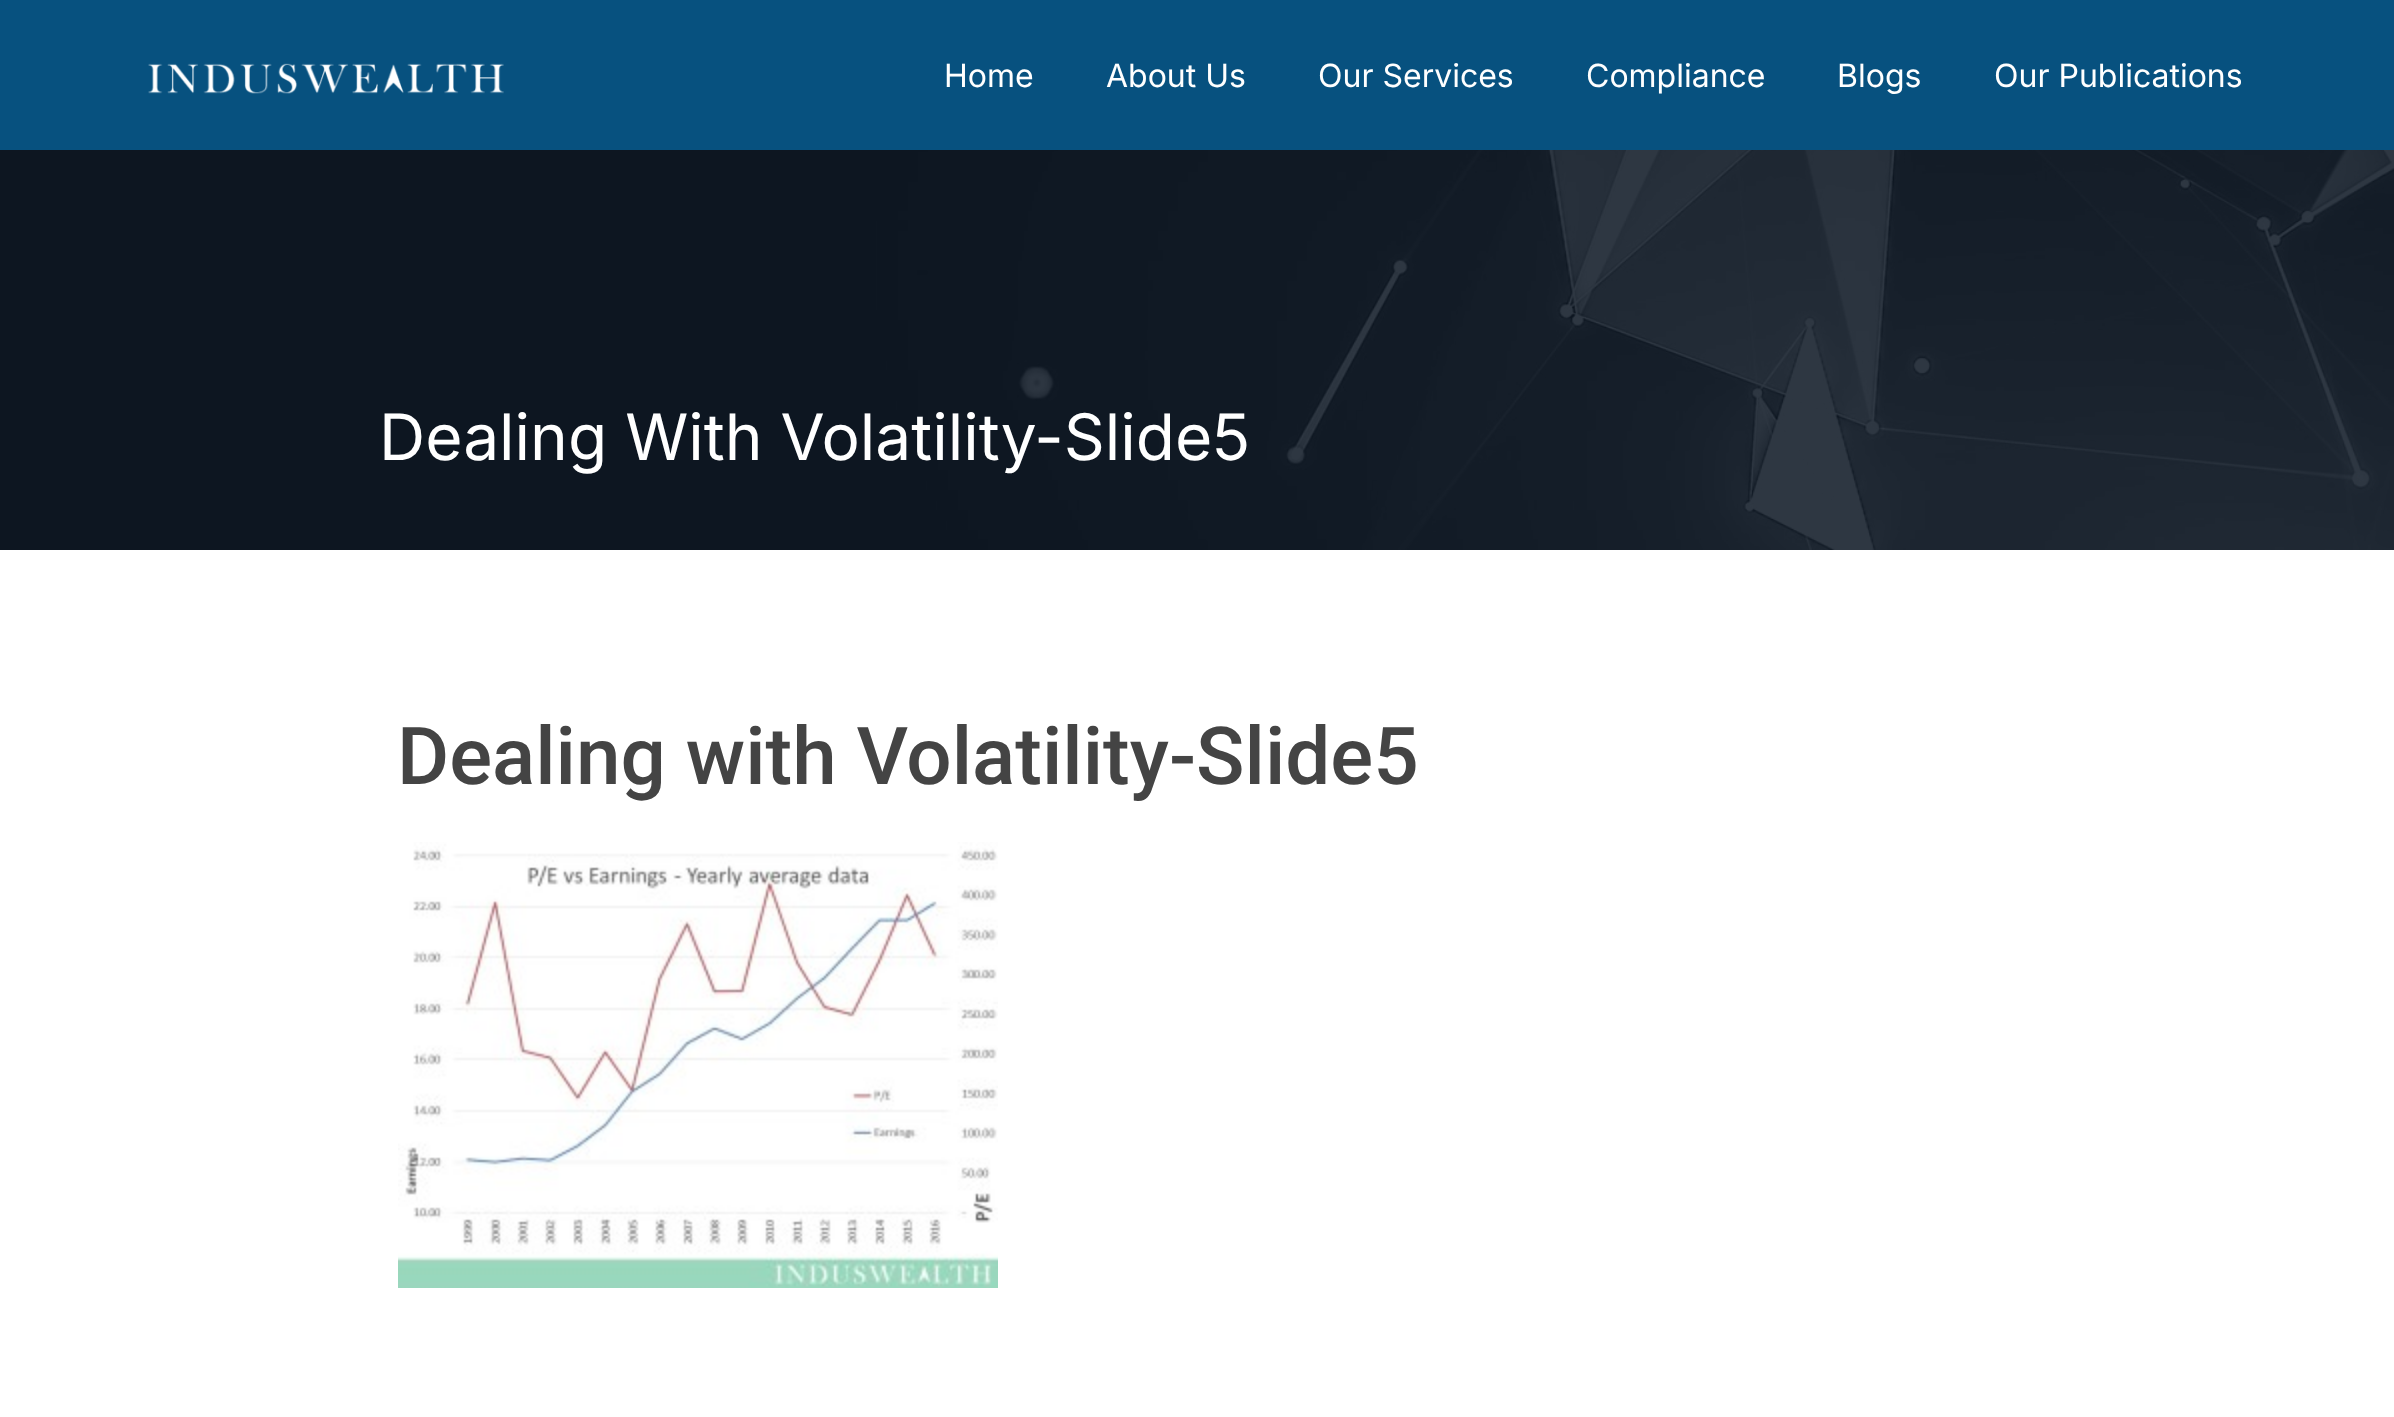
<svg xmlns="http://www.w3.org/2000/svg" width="2394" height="1417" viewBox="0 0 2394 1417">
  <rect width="100%" height="100%" fill="#fff"/>
  <path d="M0 0h2394v150H0z" fill="#07517f"/>
  <image x="148" y="63" width="356" height="31" href="img/1.png"/>
  <path d="M0 150h2394v400H0z" fill="#121d2b"/>
  <image x="0" y="150" width="2394" height="400" href="img/2.png"/>
  <image x="398" y="842" width="600" height="446" href="img/3.png"/>
  <g font-family="Inter" font-size="32" fill="#fff">
    <text x="944" y="87">Home</text>
    <text x="1106" y="87">About Us</text>
    <text x="1318" y="87">Our Services</text>
    <text x="1586" y="87">Compliance</text>
    <text x="1837" y="87">Blogs</text>
    <text x="1994" y="87">Our Publications</text>
  </g>
  <text x="379" y="460" font-family="Inter" font-size="64" fill="#fff">Dealing With Volatility-Slide5</text>
  <text x="397" y="784" font-family="Roboto" font-size="80" font-weight="500" fill="#444">Dealing with Volatility-Slide5</text>
</svg>
